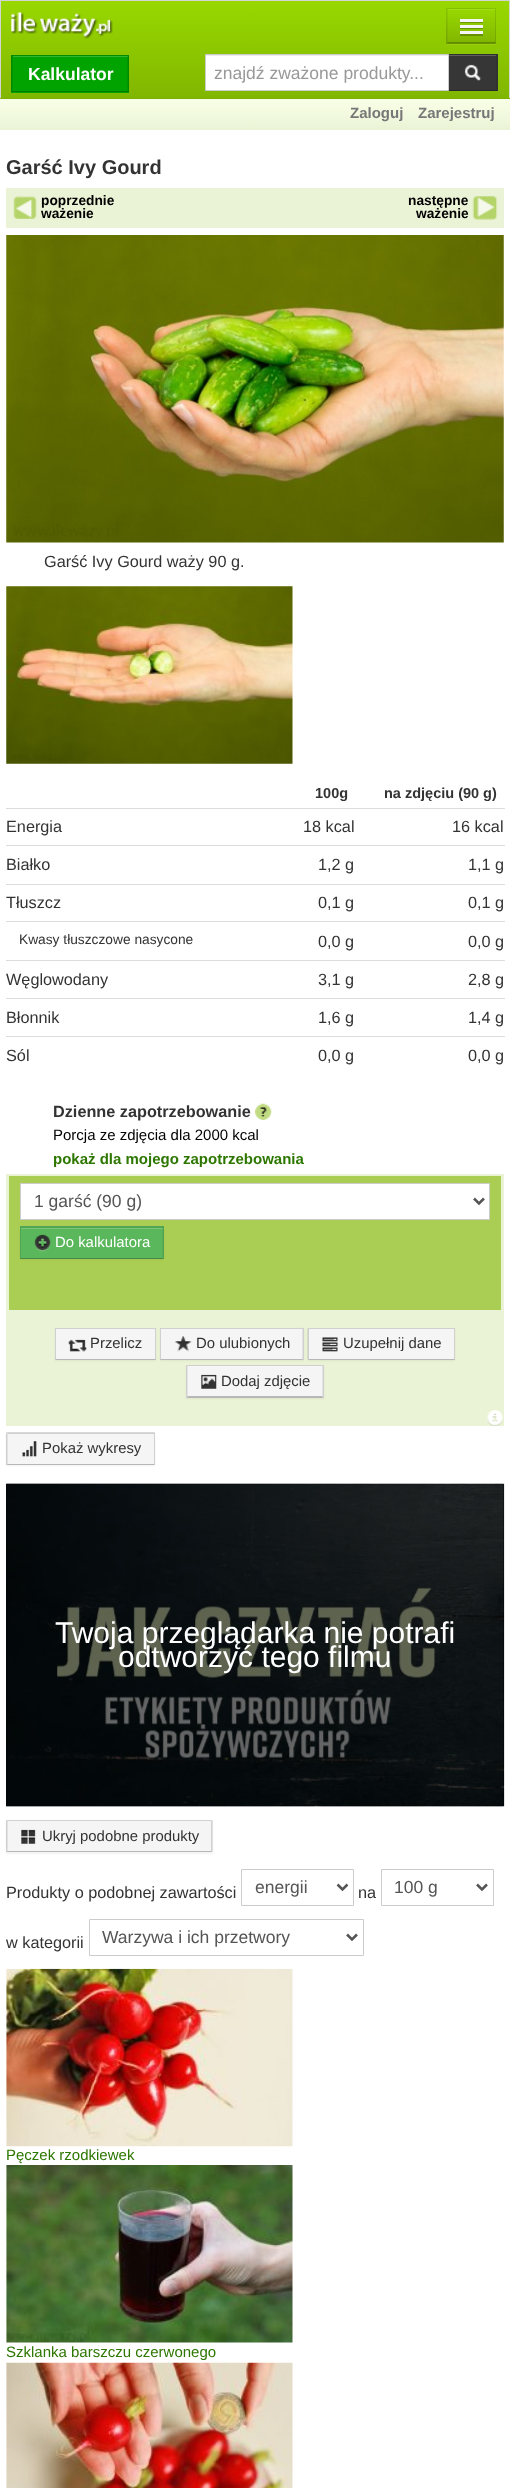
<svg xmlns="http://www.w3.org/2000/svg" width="510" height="2488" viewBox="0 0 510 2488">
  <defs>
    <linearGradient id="g1" gradientUnits="userSpaceOnUse" x1="255" y1="1.2" x2="255" y2="98"><stop offset="0" stop-color="#98d800"/><stop offset="1" stop-color="#81b600"/></linearGradient>
    <linearGradient id="g2" gradientUnits="userSpaceOnUse" x1="471" y1="9" x2="471" y2="43"><stop offset="0" stop-color="#98d800"/><stop offset="1" stop-color="#81b600"/></linearGradient>
    <linearGradient id="g3" gradientUnits="userSpaceOnUse" x1="255" y1="99" x2="255" y2="130"><stop offset="0" stop-color="#f8ffe7"/><stop offset="1" stop-color="#ebf3d6"/></linearGradient>
  </defs>
  <rect width="100%" height="100%" fill="#fff"/>
  <path d="M0 98h510v1H0z" fill="#81b600"/>
  <path d="M0 1h510v98H0z" fill="#0000000f" filter="blur(2.5px)"/>
  <path d="M1 1h508v97H1z" fill="url(#g1)"/>
  <path d="M0 0h510v1H0z" fill="#d4d4d4"/>
  <path d="M509 0h1v98H509z" fill="#d4d4d4"/>
  <path d="M0 0h1v98H0z" fill="#d4d4d4"/>
  <image x="11" y="12" width="102" height="27" href="img/1.png"/>
  <path d="M446 9V45H496V44H446Z" fill="#96cd12"/>
  <path d="M446 9h50v34H446z" fill="url(#g2)"/>
  <path d="M448 9h47v1H448z" fill="#a2dc1a"/>
  <path d="M446 8H496L495 9H448Z" fill="#87c000"/>
  <path d="M496 7.5V44L495 42.5V9Z" fill="#0000001a"/>
  <path d="M496 44H446L448 42H495Z" fill="#00000040"/>
  <path d="M446 44V7.5L447.5 9V42.5Z" fill="#0000001a"/>
  <path d="M460 21V23H483V20H482.5V21Z" fill="#6c9900"/>
  <path d="M460 19h23v3H460z" fill="#f5f5f5"/>
  <path d="M460 27.5V29H483V26H482.5V27.5Z" fill="#689400"/>
  <path d="M460 25h23v3H460z" fill="#f5f5f5"/>
  <path d="M460 34V36H483V33H482.5V34Z" fill="#658f00"/>
  <path d="M460 31h23v3H460z" fill="#f5f5f5"/>
  <path d="M11 55h118v38H11z" fill="#00a300"/>
  <path d="M13 56h115v1H13z" fill="#33b533"/>
  <path d="M11 55H129L128 56H12Z" fill="#008b00"/>
  <path d="M129 55V92.5L127.5 91V56Z" fill="#00000026"/>
  <path d="M129 92H11L12 91H128Z" fill="#00000040"/>
  <path d="M11 92.5V55L12.5 56V91Z" fill="#00000026"/>
  <path d="M206 56h242v34H206z" fill="#fff"/>
  <path d="M206 55h242v1H206z" fill="#ececec"/>
  <path d="M449 54h49v37H449z" fill="#363636"/>
  <path d="M448 54H498L496 55H449Z" fill="#313131"/>
  <path d="M497.5 54V91L496 90V55Z" fill="#313131"/>
  <path d="M498 91H448L449 90H496Z" fill="#282828"/>
  <path d="M205.5 54.5h243v36H205.5z" fill="none" stroke="#ccc"/>
  <path d="M449 55h47v1H449z" fill="#5e5e5e"/>
  <image x="464" y="64" width="18" height="17" href="img/2.png"/>
  <path d="M0 99h510v31H0z" fill="url(#g3)"/>
  <path d="M6 188h498v40H6z" fill="#ebf3d6"/>
  <image x="13" y="196" width="24" height="23" href="img/3.png"/>
  <image x="472" y="196" width="26" height="24" href="img/4.png"/>
  <image x="6" y="235" width="498" height="308" href="img/5.png"/>
  <image x="6" y="586" width="287" height="178" href="img/6.png"/>
  <path d="M6 808h499v1H6z" fill="#ddd"/>
  <path d="M6 845h499v1H6z" fill="#ddd"/>
  <path d="M6 884h499v1H6z" fill="#ddd"/>
  <path d="M6 921h499v1H6z" fill="#ddd"/>
  <path d="M6 960h499v1H6z" fill="#ddd"/>
  <path d="M6 998h499v1H6z" fill="#ddd"/>
  <path d="M6 1036h499v1H6z" fill="#ddd"/>
  <image x="255" y="1103" width="17" height="17" href="img/7.png"/>
  <path d="M6 1174h498v252H6z" fill="#ebf3d6"/>
  <path d="M9 1176h492v134H9z" fill="#aace53"/>
  <path d="M20.5 1183.5h469v36H20.5z" fill="#fff" stroke="#ccc"/>
  <path d="M474 1198.5L479 1203.5L484 1198.5" fill="none" stroke="#555" stroke-width="2.5"/>
  <path d="M20 1228h144v32H20z" fill="#0000000d" filter="blur(1px)"/>
  <path d="M20 1226h144v33H20z" fill="#5bb75b"/>
  <path d="M21 1228h142v1H21z" fill="#7cc57c"/>
  <path d="M20 1226H164L162 1228H21Z" fill="#52a552"/>
  <path d="M164 1226V1259L162.5 1257.5V1227.5Z" fill="#0000001a"/>
  <path d="M164 1259H20L21 1258H162Z" fill="#448944"/>
  <path d="M20 1259V1226L21 1227.5V1257.5Z" fill="#0000001a"/>
  <image x="34" y="1234" width="17" height="18" href="img/8.png"/>
  <path d="M55 1329h101v32H55z" fill="#0000000d" filter="blur(1px)"/>
  <path d="M55 1328h101v32H55z" fill="#f5f5f5"/>
  <path d="M55 1328H156L155 1329H56Z" fill="#d0d0d0"/>
  <path d="M156 1327.5V1360L155 1359V1329Z" fill="#00000026"/>
  <path d="M156 1360H55L56 1359H155Z" fill="#00000040"/>
  <path d="M55 1360V1327.5L56 1329V1359Z" fill="#00000026"/>
  <image x="68" y="1339" width="19" height="13" href="img/9.png"/>
  <path d="M160 1329h144v32H160z" fill="#0000000d" filter="blur(1px)"/>
  <path d="M160 1328h144v32H160z" fill="#f5f5f5"/>
  <path d="M160 1328H304L302 1329H161Z" fill="#d0d0d0"/>
  <path d="M304 1327.5V1360L302.5 1359V1329Z" fill="#00000026"/>
  <path d="M304 1360H160L161 1359H302Z" fill="#00000040"/>
  <path d="M160 1360V1327.5L161 1329V1359Z" fill="#00000026"/>
  <image x="175" y="1336" width="17" height="16" href="img/10.png"/>
  <path d="M308 1329h147v32H308z" fill="#0000000d" filter="blur(1px)"/>
  <path d="M308 1328h147v32H308z" fill="#f5f5f5"/>
  <path d="M308 1328H455L454 1329H309Z" fill="#d0d0d0"/>
  <path d="M455 1327.5V1360L454 1359V1329Z" fill="#00000026"/>
  <path d="M455 1360H308L309 1359H454Z" fill="#00000040"/>
  <path d="M307.5 1360V1327.5L309 1329V1359Z" fill="#00000026"/>
  <image x="322" y="1337" width="16" height="15" href="img/11.png"/>
  <path d="M186 1366h138v33H186z" fill="#0000000d" filter="blur(1px)"/>
  <path d="M186 1365h138v33H186z" fill="#f5f5f5"/>
  <path d="M186 1365H324L322 1366H188Z" fill="#d0d0d0"/>
  <path d="M324 1365V1397.5L322.5 1396V1366Z" fill="#00000026"/>
  <path d="M324 1398H186L188 1396H322Z" fill="#00000040"/>
  <path d="M186 1397.5V1365L187.5 1366V1396Z" fill="#00000026"/>
  <image x="201" y="1374" width="16" height="15" href="img/12.png"/>
  <image x="487" y="1410" width="16" height="16" href="img/13.png"/>
  <path d="M6 1434h149v32H6z" fill="#0000000d" filter="blur(1px)"/>
  <path d="M6 1433h149v31H6z" fill="#f5f5f5"/>
  <path d="M6 1432H155L154 1434H8Z" fill="#00000026"/>
  <path d="M155 1432.5V1465L154 1464V1434Z" fill="#00000026"/>
  <path d="M155 1465H6L8 1464H154Z" fill="#00000040"/>
  <path d="M6 1465V1432.5L7.5 1434V1464Z" fill="#00000026"/>
  <image x="22" y="1441" width="15" height="16" href="img/14.png"/>
  <path d="M6 1484h498v322H6z" fill="#000"/>
  <image x="6" y="1483" width="499" height="324" href="img/15.png"/>
  <path d="M6 1821h207v33H6z" fill="#0000000d" filter="blur(1px)"/>
  <path d="M6 1820h207v32H6z" fill="#f5f5f5"/>
  <path d="M6 1820H212L211 1821H8Z" fill="#d0d0d0"/>
  <path d="M212.5 1820V1852.5L211 1851V1821Z" fill="#d0d0d0"/>
  <path d="M212 1852H6L8 1851H211Z" fill="#00000040"/>
  <path d="M6 1852.5V1820L7.5 1821V1851Z" fill="#00000026"/>
  <image x="21" y="1829" width="15" height="15" href="img/16.png"/>
  <path d="M241.5 1869.5h112v36H241.5z" fill="none" stroke="#ccc"/>
  <path d="M337.5 1884.5L342.5 1889.5L347.5 1884.5" fill="none" stroke="#555" stroke-width="2.5"/>
  <path d="M381.5 1869.5h112v36H381.5z" fill="none" stroke="#ccc"/>
  <path d="M477 1884.5L482 1889.5L487 1884.5" fill="none" stroke="#555" stroke-width="2.5"/>
  <path d="M89.5 1919.5h274v36H89.5z" fill="none" stroke="#ccc"/>
  <path d="M347 1934.5L352 1939.5L357 1934.5" fill="none" stroke="#555" stroke-width="2.5"/>
  <image x="6" y="1968" width="287" height="179" href="img/17.png"/>
  <image x="6" y="2165" width="287" height="178" href="img/18.png"/>
  <image x="6" y="2362" width="287" height="126" href="img/19.png"/>
  <text x="28" y="80" font-family="Liberation Sans" font-size="17.5" font-weight="bold" fill="#fff">Kalkulator</text>
  <text x="214" y="79" font-family="Liberation Sans" font-size="17.5" fill="#999">znajdź zważone produkty...</text>
  <g font-family="Liberation Sans" font-size="15" font-weight="bold" fill="#777">
    <text x="350" y="118">Zaloguj</text>
    <text x="418" y="118">Zarejestruj</text>
  </g>
  <text x="6" y="174" font-family="Liberation Sans" font-size="20" font-weight="bold" fill="#333">Garść Ivy Gourd</text>
  <g font-family="Liberation Sans" font-size="13.75" font-weight="bold" fill="#000">
    <text x="41" y="205">poprzednie</text>
    <text x="41" y="218">ważenie</text>
    <text x="408" y="205">następne</text>
    <text x="416" y="218">ważenie</text>
  </g>
  <text x="44" y="567" font-family="Liberation Sans" font-size="16.25" fill="#333">Garść Ivy Gourd waży 90 g.</text>
  <g font-family="Liberation Sans" font-size="14.5" font-weight="bold" fill="#333">
    <text x="315" y="798">100g</text>
    <text x="384" y="798">na zdjęciu (90 g)</text>
  </g>
  <g font-family="Liberation Sans" font-size="16.25" fill="#333">
    <text x="6" y="832">Energia</text>
    <text x="303" y="832">18 kcal</text>
    <text x="452" y="832">16 kcal</text>
    <text x="6" y="870">Białko</text>
    <text x="318" y="870">1,2 g</text>
    <text x="468" y="870">1,1 g</text>
    <text x="6" y="908">Tłuszcz</text>
    <text x="318" y="908">0,1 g</text>
    <text x="468" y="908">0,1 g</text>
  </g>
  <text x="19" y="944" font-family="Liberation Sans" font-size="13.75" fill="#333">Kwasy tłuszczowe nasycone</text>
  <g font-family="Liberation Sans" font-size="16.25" fill="#333">
    <text x="318" y="947">0,0 g</text>
    <text x="468" y="947">0,0 g</text>
    <text x="6" y="985">Węglowodany</text>
    <text x="318" y="985">3,1 g</text>
    <text x="468" y="985">2,8 g</text>
    <text x="6" y="1023">Błonnik</text>
    <text x="318" y="1023">1,6 g</text>
    <text x="468" y="1023">1,4 g</text>
    <text x="6" y="1061">Sól</text>
    <text x="318" y="1061">0,0 g</text>
    <text x="468" y="1061">0,0 g</text>
  </g>
  <text x="53" y="1117" font-family="Liberation Sans" font-size="16.25" font-weight="bold" fill="#333">Dzienne zapotrzebowanie</text>
  <text x="53" y="1140" font-family="Liberation Sans" font-size="15" fill="#000">Porcja ze zdjęcia dla 2000 kcal</text>
  <text x="53" y="1164" font-family="Liberation Sans" font-size="15" font-weight="bold" fill="#2d7700">pokaż dla mojego zapotrzebowania</text>
  <text x="34" y="1207" font-family="Liberation Sans" font-size="17.5" fill="#555">1 garść (90 g)</text>
  <text x="55" y="1247" font-family="Liberation Sans" font-size="14.9" fill="#fff">Do kalkulatora</text>
  <g font-family="Liberation Sans" font-size="14.9" fill="#333">
    <text x="90" y="1348">Przelicz</text>
    <text x="196" y="1348">Do ulubionych</text>
    <text x="343" y="1348">Uzupełnij dane</text>
    <text x="221" y="1386">Dodaj zdjęcie</text>
    <text x="42" y="1453">Pokaż wykresy</text>
  </g>
  <g font-family="Liberation Sans" font-size="30" fill="#fff">
    <text x="55" y="1643">Twoja przeglądarka nie potrafi</text>
    <text x="118" y="1667">odtworzyć tego filmu</text>
  </g>
  <text x="42" y="1841" font-family="Liberation Sans" font-size="14.9" fill="#333">Ukryj podobne produkty</text>
  <text x="6" y="1898" font-family="Liberation Sans" font-size="16.25" fill="#333">Produkty o podobnej zawartości</text>
  <text x="255" y="1893" font-family="Liberation Sans" font-size="17.5" fill="#555">energii</text>
  <text x="358" y="1898" font-family="Liberation Sans" font-size="16.25" fill="#333">na</text>
  <text x="394" y="1893" font-family="Liberation Sans" font-size="17.5" fill="#555">100 g</text>
  <text x="6" y="1948" font-family="Liberation Sans" font-size="16.25" fill="#333">w kategorii</text>
  <text x="102" y="1943" font-family="Liberation Sans" font-size="17.5" fill="#555">Warzywa i ich przetwory</text>
  <g font-family="Liberation Sans" font-size="15" fill="#2d7700">
    <text x="6" y="2160">Pęczek rzodkiewek</text>
    <text x="6" y="2357">Szklanka barszczu czerwonego</text>
  </g>
</svg>
